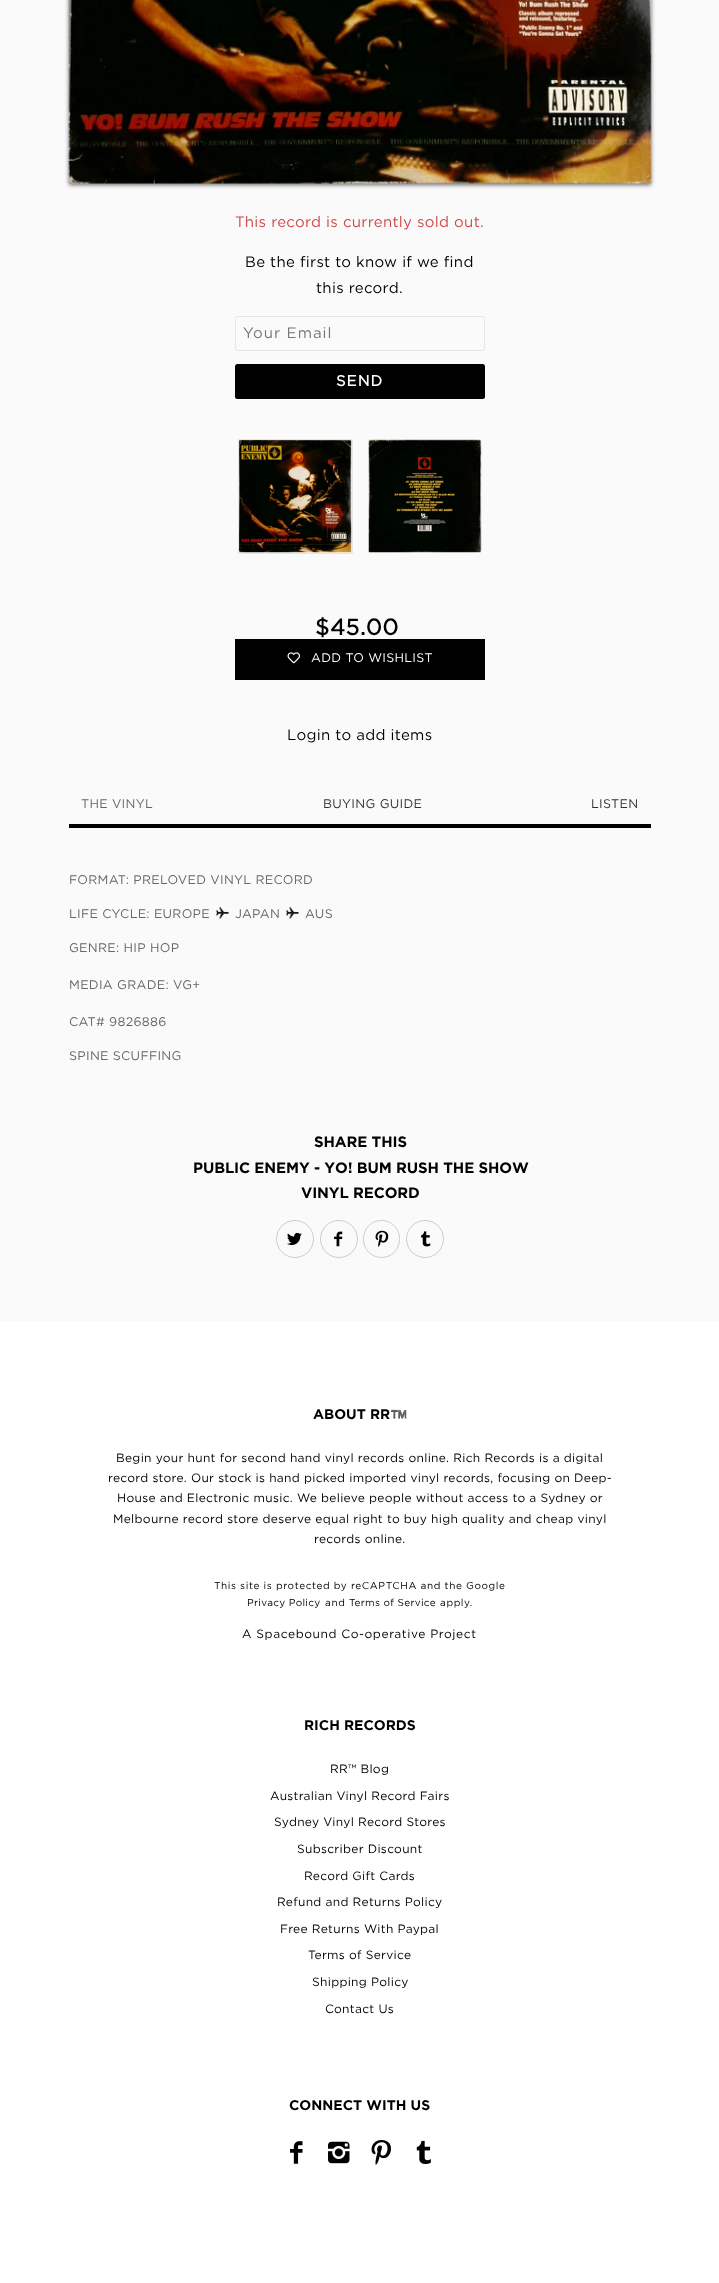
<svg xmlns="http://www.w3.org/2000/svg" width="719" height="2283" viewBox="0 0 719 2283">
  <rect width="100%" height="100%" fill="#fafafa"/>
  <path d="M69 -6h582v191H69z" fill="#6b6a6a" filter="blur(2px)"/>
  <image x="68" y="0" width="584" height="184" href="img/1.png"/>
  <rect x="235.5" y="316.5" width="249" height="34" rx="2" fill="none" stroke="#e6e6e6"/>
  <rect x="235" y="364" width="250" height="35" rx="2.5" fill="#000"/>
  <image x="239" y="440" width="113" height="113" href="img/2.png"/>
  <path d="M238.5 439.5h114v114H238.5z" fill="none" stroke="#e6e6e6"/>
  <image x="368" y="439" width="114" height="114" href="img/3.png"/>
  <path d="M235 639h250v41H235z" fill="#000"/>
  <image x="287" y="652" width="13" height="12" href="img/4.png"/>
  <path d="M69 824h582v4H69z" fill="#000"/>
  <image x="216" y="907" width="13" height="12" href="img/5.png"/>
  <image x="286" y="907" width="13" height="12" href="img/5.png"/>
  <circle cx="295" cy="1239" r="18.5" fill="none" stroke="#cdcdcd"/>
  <image x="287" y="1232" width="15" height="13" href="img/6.png"/>
  <circle cx="339" cy="1239" r="18.5" fill="none" stroke="#cdcdcd"/>
  <image x="334" y="1231" width="9" height="16" href="img/7.png"/>
  <rect x="363.5" y="1220.5" width="36" height="37" rx="18" fill="none" stroke="#cdcdcd"/>
  <image x="375" y="1230" width="14" height="17" href="img/8.png"/>
  <circle cx="425" cy="1239" r="18.5" fill="none" stroke="#cdcdcd"/>
  <image x="421" y="1231" width="10" height="16" href="img/9.png"/>
  <path d="M0 1321h719v962H0z" fill="#fff"/>
  <image x="290" y="2141" width="13" height="23" href="img/10.png"/>
  <image x="328" y="2141" width="22" height="23" href="img/11.png"/>
  <image x="371" y="2140" width="20" height="25" href="img/12.png"/>
  <image x="416" y="2140" width="15" height="24" href="img/13.png"/>
  <text x="235" y="227" font-family="Gotham" font-size="15" letter-spacing="0.3" fill="#d0494b">This record is currently sold out.</text>
  <g font-family="Gotham" font-size="15" letter-spacing="0.3" fill="#000">
    <text x="245" y="267">Be the first to know if we find</text>
    <text x="316" y="293">this record.</text>
  </g>
  <text x="243" y="338" font-family="Gotham" font-size="15" letter-spacing="1" fill="#757575">Your Email</text>
  <text x="336" y="386" font-family="Gotham" font-size="15" font-weight="bold" letter-spacing="1" fill="#fff">SEND</text>
  <text x="315" y="635" font-family="Gotham" font-size="22.5" font-weight="bold" letter-spacing="0.6" fill="#000">$45.00</text>
  <text x="311" y="662" font-family="Gotham" font-size="12.5" letter-spacing="0.3" fill="#fff">ADD TO WISHLIST</text>
  <text x="287" y="740" font-family="Gotham" font-size="15" letter-spacing="0.3" fill="#000">Login to add items</text>
  <text x="81" y="808" font-family="Gotham" font-size="12.5" letter-spacing="0.3" fill="#666">THE VINYL</text>
  <g font-family="Gotham" font-size="12.5" letter-spacing="0.3" fill="#303030">
    <text x="323" y="808">BUYING GUIDE</text>
    <text x="591" y="808">LISTEN</text>
  </g>
  <g font-family="Gotham" font-size="12.5" letter-spacing="0.3" fill="#666">
    <text x="69" y="884">FORMAT: PRELOVED VINYL RECORD</text>
    <text x="69" y="918">LIFE CYCLE: EUROPE</text>
    <text x="235" y="918">JAPAN</text>
    <text x="305" y="918">AUS</text>
    <text x="69" y="952">GENRE: HIP HOP</text>
    <text x="69" y="989">MEDIA GRADE: VG+</text>
    <text x="69" y="1026">CAT# 9826886</text>
    <text x="69" y="1060">SPINE SCUFFING</text>
  </g>
  <g font-family="'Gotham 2'" font-size="15" font-weight="bold" letter-spacing="-0.1" fill="#000">
    <text x="314" y="1147">SHARE THIS</text>
    <text x="193" y="1173">PUBLIC ENEMY - YO! BUM RUSH THE SHOW</text>
    <text x="301" y="1198">VINYL RECORD</text>
  </g>
  <text x="313" y="1419" font-family="'Gotham 2'" font-size="14" font-weight="bold" fill="#000">ABOUT RR</text>
  <text x="390" y="1419" font-family="Noto Color Emoji" font-size="14" fill="#000">™️</text>
  <g font-family="Gotham" font-size="12" letter-spacing="0.3" fill="#000">
    <text x="116" y="1462">Begin your hunt for second hand vinyl records online. Rich Records is a digital</text>
    <text x="108" y="1482">record store. Our stock is hand picked imported vinyl records, focusing on Deep-</text>
    <text x="117" y="1502">House and Electronic music. We believe people without access to a Sydney or</text>
    <text x="113" y="1523">Melbourne record store deserve equal right to buy high quality and cheap vinyl</text>
    <text x="314" y="1543">records online.</text>
  </g>
  <text x="214" y="1589" font-family="Gotham" font-size="10" letter-spacing="0.6" fill="#000">This site is protected by reCAPTCHA and the Google</text>
  <text x="247" y="1606" font-family="Gotham" font-size="10" letter-spacing="0.3" fill="#000">Privacy Policy</text>
  <text x="325" y="1606" font-family="Gotham" font-size="10" letter-spacing="0.6" fill="#000">and</text>
  <text x="349" y="1606" font-family="Gotham" font-size="10" letter-spacing="0.3" fill="#000">Terms of Service</text>
  <text x="440" y="1606" font-family="Gotham" font-size="10" letter-spacing="0.6" fill="#000">apply.</text>
  <text x="242" y="1638" font-family="Gotham" font-size="12" letter-spacing="0.6" fill="#000">A Spacebound Co-operative Project</text>
  <text x="304" y="1730" font-family="'Gotham 2'" font-size="14" font-weight="bold" fill="#000">RICH RECORDS</text>
  <g font-family="Gotham" font-size="12" letter-spacing="0.3" fill="#000">
    <text x="330" y="1773">RR™ Blog</text>
    <text x="270" y="1800">Australian Vinyl Record Fairs</text>
    <text x="274" y="1826">Sydney Vinyl Record Stores</text>
    <text x="297" y="1853">Subscriber Discount</text>
    <text x="304" y="1880">Record Gift Cards</text>
    <text x="277" y="1906">Refund and Returns Policy</text>
    <text x="280" y="1933">Free Returns With Paypal</text>
    <text x="308" y="1959">Terms of Service</text>
    <text x="312" y="1986">Shipping Policy</text>
    <text x="325" y="2013">Contact Us</text>
  </g>
  <text x="289" y="2110" font-family="'Gotham 2'" font-size="14" font-weight="bold" fill="#000">CONNECT WITH US</text>
</svg>
